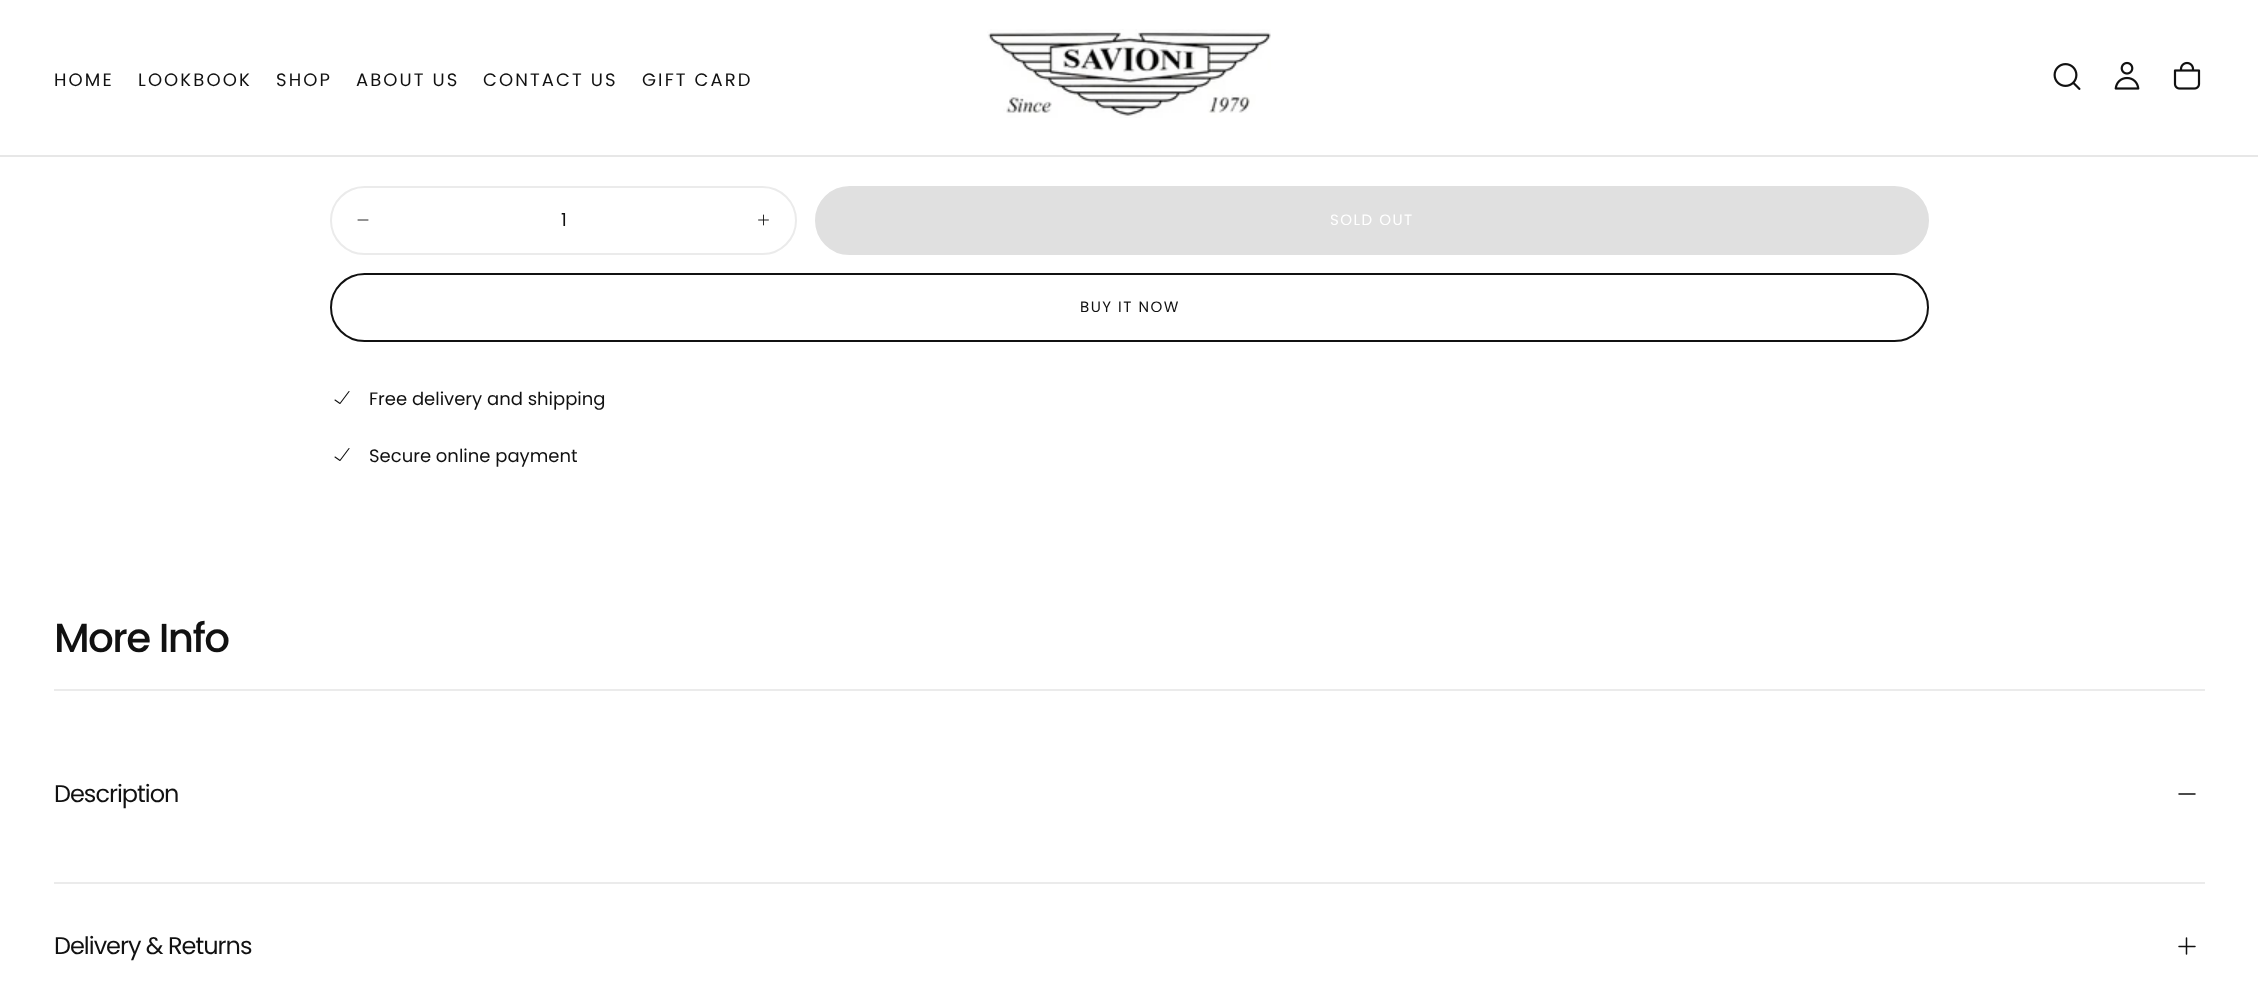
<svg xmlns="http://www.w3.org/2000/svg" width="2258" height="986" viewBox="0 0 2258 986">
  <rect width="100%" height="100%" fill="#fff"/>
  <path d="M0 155h2258v2H0z" fill="#e7e7e7"/>
  <image x="987" y="29" width="284" height="89" href="img/1.png"/>
  <image x="2053" y="63" width="28" height="27" href="img/2.png"/>
  <image x="2114" y="61" width="26" height="29" href="img/3.png"/>
  <image x="2173" y="61" width="28" height="29" href="img/4.png"/>
  <rect x="331" y="187" width="465" height="67" rx="33.5" fill="none" stroke="#ebebeb" stroke-width="2"/>
  <path d="M358 220H368" fill="none" stroke="#111" stroke-width="0.9" stroke-linecap="round"/>
  <image x="758" y="214" width="11" height="12" href="img/5.png"/>
  <rect x="816" y="187" width="1112" height="67" rx="33.5" fill="#e0e0e0" stroke="#e0e0e0" stroke-width="2"/>
  <rect x="331" y="274" width="1597" height="67" rx="33.5" fill="none" stroke="#111" stroke-width="2"/>
  <path d="M335 400L340 403.5L349 391.5" fill="none" stroke="#111" stroke-width="1.1" stroke-linecap="round" stroke-linejoin="round"/>
  <path d="M335 457L340 460.5L349 448.5" fill="none" stroke="#111" stroke-width="1.1" stroke-linecap="round" stroke-linejoin="round"/>
  <path d="M54 689h2151v2H54z" fill="#ebebeb"/>
  <path d="M54 882h2151v2H54z" fill="#ebebeb"/>
  <path d="M2195 794H2179M2195 794H2179" fill="none" stroke="#111" stroke-width="1.5" stroke-linecap="round"/>
  <path d="M2179 946.5H2195M2186.5 938V954" fill="none" stroke="#111" stroke-width="1.5" stroke-linecap="round"/>
  <g font-family="Poppins" font-size="18" letter-spacing="2.1" fill="#111">
    <text x="54" y="86">HOME</text>
    <text x="138" y="86">LOOKBOOK</text>
    <text x="276" y="86">SHOP</text>
    <text x="356" y="86">ABOUT US</text>
    <text x="483" y="86">CONTACT US</text>
    <text x="642" y="86">GIFT CARD</text>
  </g>
  <text x="561" y="226" font-family="Poppins" font-size="18" fill="#111">1</text>
  <text x="1330" y="225" font-family="Poppins" font-size="15" letter-spacing="1.5" fill="#fff">SOLD OUT</text>
  <text x="1080" y="312" font-family="Poppins" font-size="15" letter-spacing="1.5" fill="#111">BUY IT NOW</text>
  <g font-family="Poppins" font-size="18" fill="#111">
    <text x="369" y="405">Free delivery and shipping</text>
    <text x="369" y="462">Secure online payment</text>
  </g>
  <text x="54" y="652" font-family="Poppins" font-size="40.5" font-weight="500" letter-spacing="-1.6" fill="#111">More Info</text>
  <g font-family="Poppins" font-size="24" letter-spacing="-1" fill="#111">
    <text x="54" y="802">Description</text>
    <text x="54" y="954">Delivery &amp; Returns</text>
  </g>
</svg>
